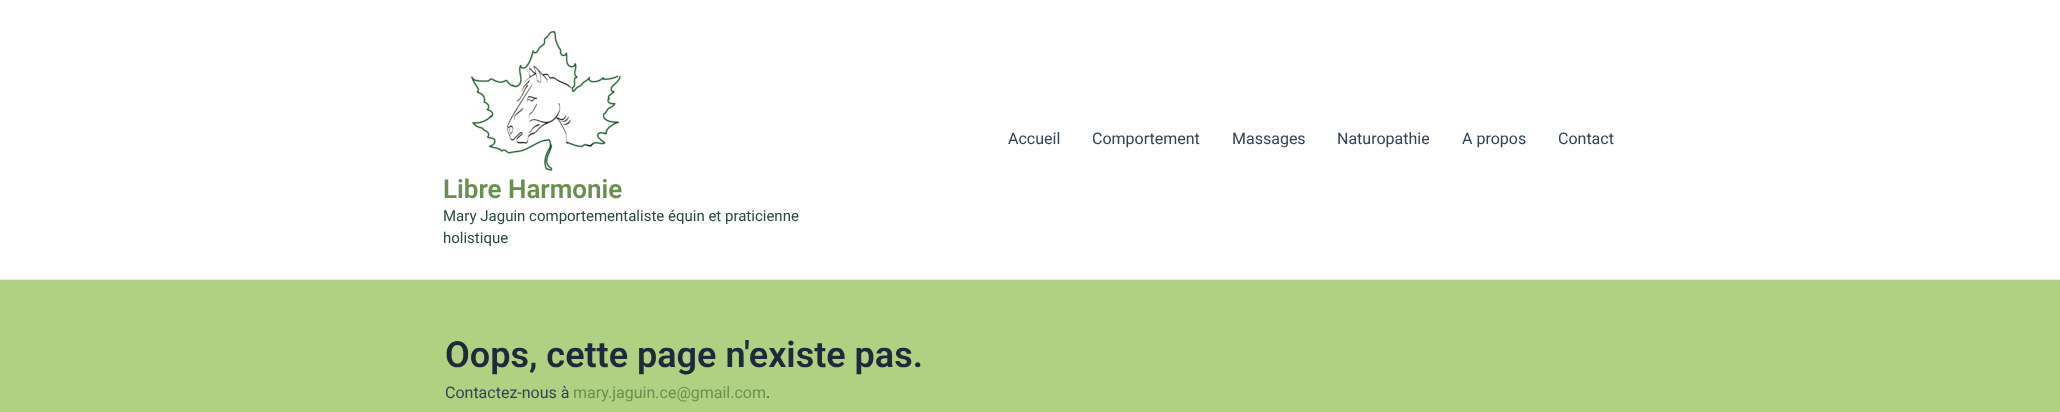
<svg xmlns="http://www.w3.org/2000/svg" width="2060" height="412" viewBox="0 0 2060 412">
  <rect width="100%" height="100%" fill="#b1d182"/>
  <path d="M0 0h2060v279H0z" fill="#fff"/>
  <path d="M0 279h2060v1H0z" fill="#eaeaea"/>
  <image x="471" y="30" width="150" height="141" href="img/1.png"/>
  <g font-family="Roboto" font-size="16" fill="#334155">
    <text x="1008" y="144">Accueil</text>
    <text x="1092" y="144">Comportement</text>
    <text x="1232" y="144">Massages</text>
    <text x="1337" y="144">Naturopathie</text>
    <text x="1462" y="144">A propos</text>
    <text x="1558" y="144">Contact</text>
  </g>
  <text x="443" y="198" font-family="Roboto" font-size="26" font-weight="600" fill="#688f4e">Libre Harmonie</text>
  <g font-family="Roboto" font-size="15" fill="#2b483c">
    <text x="443" y="221">Mary Jaguin comportementaliste équin et praticienne</text>
    <text x="443" y="243">holistique</text>
  </g>
  <text x="445" y="367" font-family="Roboto" font-size="36" font-weight="600" fill="#1e293b">Oops, cette page n'existe pas.</text>
  <text x="445" y="398" font-family="Roboto" font-size="16" fill="#334155">Contactez-nous à</text>
  <text x="573" y="398" font-family="Roboto" font-size="16" fill="#688f4e">mary.jaguin.ce@gmail.com</text>
  <text x="766" y="398" font-family="Roboto" font-size="16" fill="#334155">.</text>
</svg>
